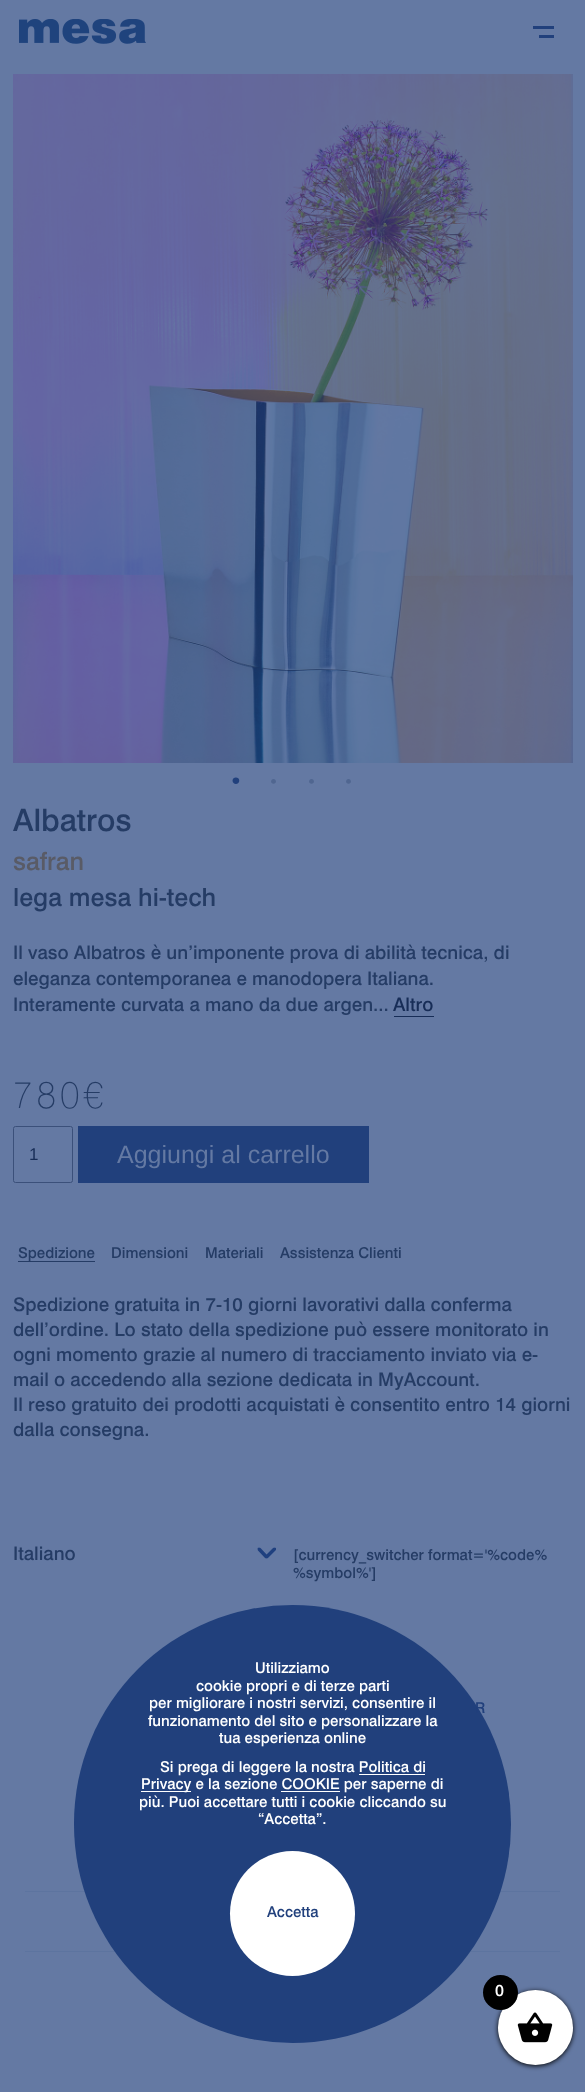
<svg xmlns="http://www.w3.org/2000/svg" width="585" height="2092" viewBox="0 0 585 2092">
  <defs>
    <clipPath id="clip1"><path d="M276 1547.5V1559H257.5V1547.5Z"/></clipPath>
    <clipPath id="clip2"><path d="M276 1547.5V1558.5H257.5V1547.5Z"/></clipPath>
  </defs>
  <rect width="100%" height="100%" fill="#6479a3"/>
  <image x="19" y="19" width="127" height="25" href="img/1.png"/>
  <path d="M533 26h21v3H533z" fill="#21407c"/>
  <path d="M539 35h15v3H539z" fill="#21407c"/>
  <image x="13" y="74" width="560" height="689" href="img/2.png"/>
  <path d="M394 1016h40v1H394z" fill="#172d57"/>
  <rect x="13.5" y="1126.5" width="59" height="56" rx="2" fill="none" stroke="#3b507a"/>
  <path d="M78 1126h291v57H78z" fill="#21407c"/>
  <path d="M18 1261h77v1H18z" fill="#253c65"/>
  <g clip-path="url(#clip1)">
    <g clip-path="url(#clip2)">
      <path d="M274.5 1549L266.5 1557L259 1549" fill="none" stroke="#1f407f" stroke-width="3.4" stroke-linecap="round" stroke-linejoin="round"/>
    </g>
  </g>
  <path d="M25 1891h535v1H25z" fill="#5d749f"/>
  <path d="M25 1951h535v1H25z" fill="#5d749f"/>
  <rect x="74" y="1605" width="437" height="438" rx="218.5" fill="#21407c"/>
  <path d="M359 1774h66v1H359z" fill="#fff"/>
  <path d="M141 1791h50v1H141z" fill="#fff"/>
  <path d="M281 1791h59v1H281z" fill="#fff"/>
  <circle cx="292.5" cy="1913.5" r="62.5" fill="#fff"/>
  <rect x="498" y="1991" width="75" height="75" rx="37.5" fill="#000" filter="blur(2.5px)"/>
  <circle cx="535.5" cy="2027.5" r="37.5" fill="#fff"/>
  <circle cx="500.5" cy="1992.5" r="17.5" fill="#000"/>
  <image x="517" y="2012" width="36" height="31" href="img/3.png"/>
  <text x="231" y="790" font-family="Liberation Serif" font-size="28" fill="#21407c">•</text>
  <g font-family="Liberation Serif" font-size="20" fill="#506690">
    <text x="270" y="788">•</text>
    <text x="308" y="788">•</text>
    <text x="345" y="788">•</text>
  </g>
  <text x="13" y="831" font-family="'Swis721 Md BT'" font-size="31" font-weight="500" fill="#253c65">Albatros</text>
  <text x="13" y="870" font-family="'Swis721 Md BT'" font-size="25" font-weight="500" fill="#595b66">safran</text>
  <text x="13" y="906" font-family="'Swis721 Md BT'" font-size="25" font-weight="500" fill="#253c65">lega mesa hi-tech</text>
  <g font-family="'Swis721 Md BT'" font-size="18.75" font-weight="500" fill="#253c65">
    <text x="13" y="959">Il vaso Albatros è un’imponente prova di abilità tecnica, di</text>
    <text x="13" y="985">eleganza contemporanea e manodopera Italiana.</text>
    <text x="13" y="1011">Interamente curvata a mano da due argen...</text>
  </g>
  <text x="393" y="1011" font-family="'Swis721 Md BT'" font-size="18.75" font-weight="500" fill="#172d57">Altro</text>
  <text x="13" y="1108" font-family="'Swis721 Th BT'" font-size="37.5" font-weight="100" letter-spacing="4" fill="#253c65">780€</text>
  <text x="29" y="1160" font-family="Liberation Sans" font-size="17" fill="#172d57">1</text>
  <text x="117" y="1163" font-family="Liberation Sans" font-size="25" fill="#6479a3">Aggiungi al carrello</text>
  <g font-family="'Swis721 Md BT'" font-size="15" font-weight="500" fill="#253c65">
    <text x="18" y="1258">Spedizione</text>
    <text x="111" y="1258">Dimensioni</text>
    <text x="205" y="1258">Materiali</text>
    <text x="280" y="1258">Assistenza Clienti</text>
  </g>
  <g font-family="'Swis721 Md BT'" font-size="18.75" font-weight="500" fill="#253c65">
    <text x="13" y="1311">Spedizione gratuita in 7-10 giorni lavorativi dalla conferma</text>
    <text x="13" y="1336">dell’ordine. Lo stato della spedizione può essere monitorato in</text>
    <text x="13" y="1361">ogni momento grazie al numero di tracciamento inviato via e-</text>
    <text x="13" y="1386">mail o accedendo alla sezione dedicata in MyAccount.</text>
    <text x="13" y="1411">Il reso gratuito dei prodotti acquistati è consentito entro 14 giorni</text>
    <text x="13" y="1436">dalla consegna.</text>
    <text x="13" y="1560">Italiano</text>
  </g>
  <g font-family="'Swis721 Md BT'" font-size="15" font-weight="500" fill="#253c65">
    <text x="293" y="1560">[currency_switcher format='%code%</text>
    <text x="293" y="1578">%symbol%']</text>
  </g>
  <text x="475" y="1713" font-family="'Swis721 Md BT'" font-size="15" font-weight="500" fill="#21407c">R</text>
  <g font-family="'Swis721 Md BT'" font-size="15" font-weight="500" fill="#fff">
    <text x="255" y="1673">Utilizziamo</text>
    <text x="196" y="1691">cookie propri e di terze parti</text>
    <text x="149" y="1708">per migliorare i nostri servizi, consentire il</text>
    <text x="148" y="1726">funzionamento del sito e personalizzare la</text>
    <text x="219" y="1743">tua esperienza online</text>
    <text x="160" y="1772">Si prega di leggere la nostra Politica di</text>
    <text x="141" y="1789">Privacy e la sezione COOKIE per saperne di</text>
    <text x="139" y="1807">più. Puoi accettare tutti i cookie cliccando su</text>
    <text x="258" y="1824">“Accetta”.</text>
  </g>
  <text x="267" y="1917" font-family="'Swis721 Md BT'" font-size="15" font-weight="500" fill="#21407c">Accetta</text>
  <text x="495" y="1996" font-family="'Swis721 Md BT'" font-size="16" font-weight="500" fill="#fff">0</text>
</svg>
